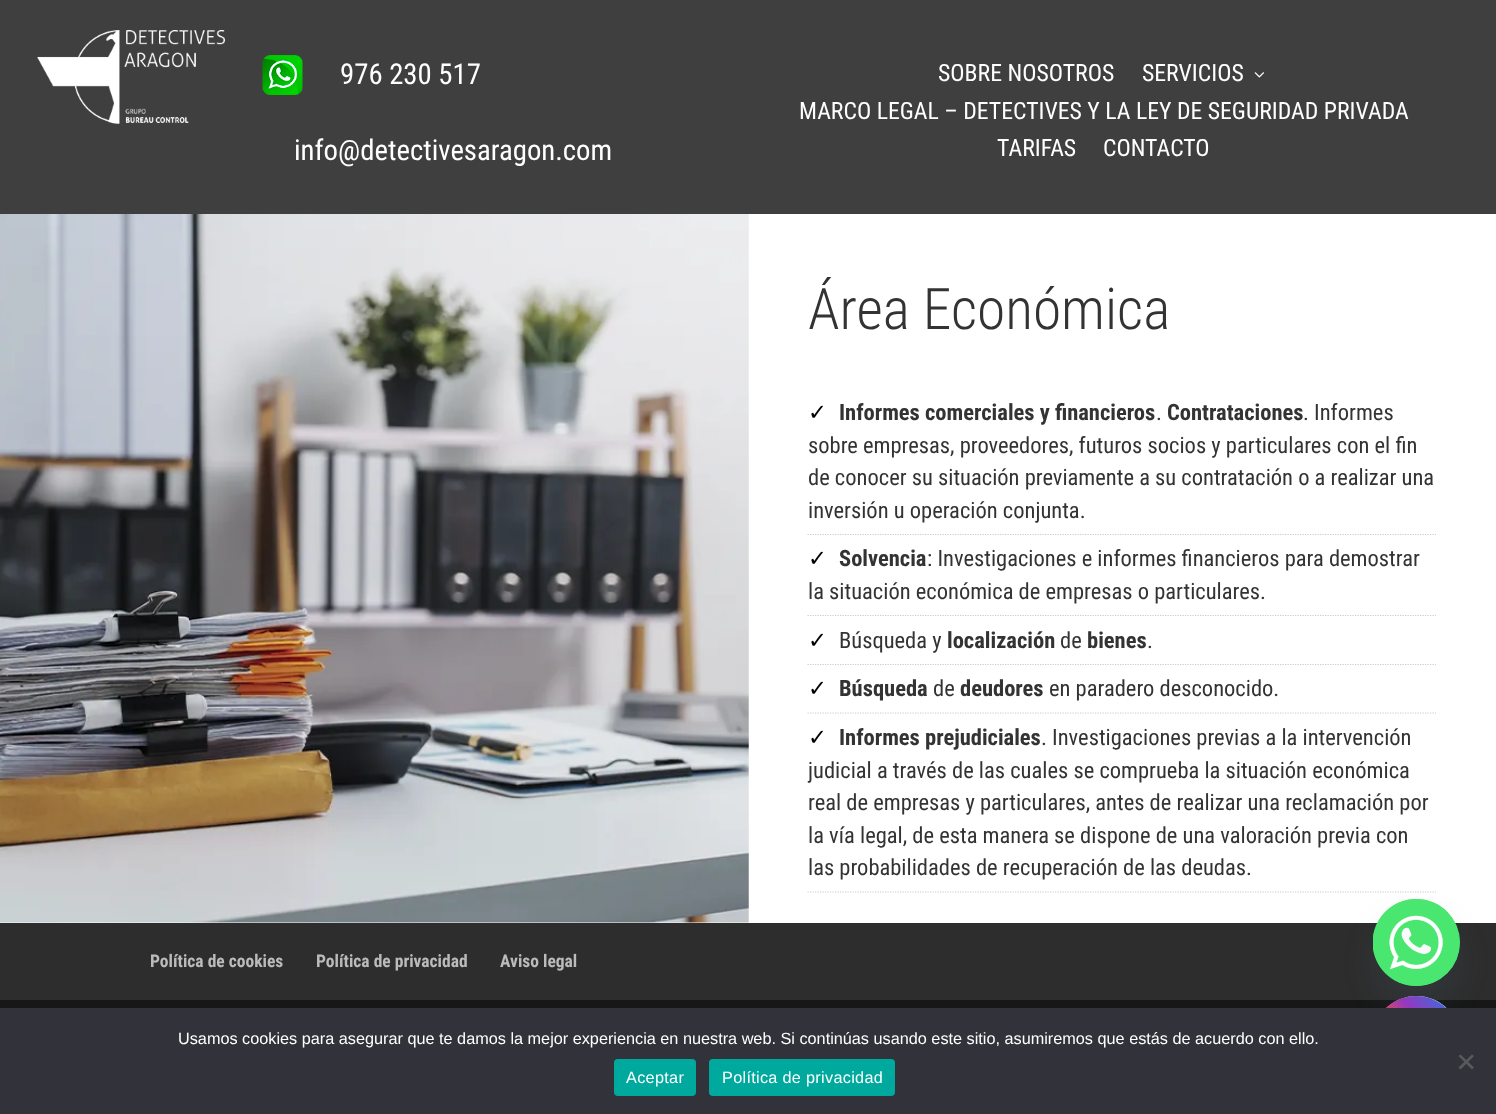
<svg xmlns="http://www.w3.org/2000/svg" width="1496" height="1114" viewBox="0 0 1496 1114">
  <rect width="100%" height="100%" fill="#fff"/>
  <path d="M0 0h1496v214H0z" fill="#3f3f3f"/>
  <image x="37" y="30" width="188" height="94" href="img/1.png"/>
  <image x="262" y="55" width="41" height="40" href="img/2.png"/>
  <image x="1254" y="72" width="10" height="6" href="img/3.png"/>
  <image x="0" y="214" width="749" height="709" href="img/4.png"/>
  <path d="M807.5 534.5H1436" fill="none" stroke="#ccc" stroke-width="1.2" stroke-dasharray="1.25 1.25"/>
  <path d="M807.5 615.5H1436" fill="none" stroke="#ccc" stroke-width="1.2" stroke-dasharray="1.25 1.25"/>
  <path d="M807.5 664.5H1436" fill="none" stroke="#ccc" stroke-width="1.2" stroke-dasharray="1.25 1.25"/>
  <path d="M807.5 713H1436" fill="none" stroke="#ccc" stroke-width="1.2" stroke-dasharray="1.25 1.25"/>
  <path d="M807.5 892H1436" fill="none" stroke="#ccc" stroke-width="1.2" stroke-dasharray="1.25 1.25"/>
  <path d="M0 923h1496v77H0z" fill="#2d2d2d"/>
  <path d="M0 1000h1496v8H0z" fill="#171717"/>
  <rect x="1373" y="919" width="87" height="87" rx="43.5" fill="#49687e29" filter="blur(15px)"/>
  <rect x="1373" y="996" width="87" height="88" rx="43.5" fill="#fff"/>
  <path d="M0 1008h1496v106H0z" fill="#32323a"/>
  <path d="M1472 1054.5L1474 1056L1460.5 1069.5L1458.5 1067.5Z" fill="#59595d"/>
  <path d="M1458.5 1056L1460.5 1054.5L1474 1067.5L1472 1069.5Z" fill="#59595d"/>
  <rect x="614" y="1059" width="82" height="37" rx="4" fill="#00a99d"/>
  <rect x="709" y="1059" width="186" height="37" rx="4" fill="#00a99d"/>
  <circle cx="1416.5" cy="942.5" r="43.5" fill="#49e670"/>
  <image x="1373" y="899" width="87" height="87" href="img/5.png"/>
  <image x="1386" y="996" width="60" height="12" href="img/6.png"/>
  <g font-family="Roboto Condensed" font-size="28.75" fill="#fff">
    <text x="340" y="84">976 230 517</text>
    <text x="294" y="160">info@detectivesaragon.com</text>
  </g>
  <g font-family="Roboto Condensed" font-size="23.75" fill="#fff">
    <text x="938" y="81">SOBRE NOSOTROS</text>
    <text x="1142" y="81">SERVICIOS</text>
    <text x="799" y="119">MARCO LEGAL – DETECTIVES Y LA LEY DE SEGURIDAD PRIVADA</text>
    <text x="997" y="156">TARIFAS</text>
    <text x="1103" y="156">CONTACTO</text>
  </g>
  <text x="808" y="329" font-family="Roboto Condensed" font-size="57.5" font-weight="300" fill="#333">Área Económica</text>
  <text x="808" y="420" font-family="DejaVu Sans" font-size="22.5" fill="#000">✓</text>
  <g font-family="Roboto Condensed" font-size="22.5" font-weight="bold" fill="#333">
    <text x="839" y="420">Informes comerciales y financieros</text>
    <text x="1167" y="420">Contrataciones</text>
  </g>
  <g font-family="Roboto Condensed" font-size="22.5" fill="#333">
    <text x="1303" y="420">. Informes</text>
    <text x="1156" y="420">.</text>
    <text x="808" y="453">sobre empresas, proveedores, futuros socios y particulares con el fin</text>
    <text x="808" y="485">de conocer su situación previamente a su contratación o a realizar una</text>
    <text x="808" y="518">inversión u operación conjunta.</text>
  </g>
  <text x="808" y="566" font-family="DejaVu Sans" font-size="22.5" fill="#000">✓</text>
  <text x="839" y="566" font-family="Roboto Condensed" font-size="22.5" font-weight="bold" fill="#333">Solvencia</text>
  <g font-family="Roboto Condensed" font-size="22.5" fill="#333">
    <text x="927" y="566">: Investigaciones e informes financieros para demostrar</text>
    <text x="808" y="599">la situación económica de empresas o particulares.</text>
  </g>
  <text x="808" y="648" font-family="DejaVu Sans" font-size="22.5" fill="#000">✓</text>
  <text x="839" y="648" font-family="Roboto Condensed" font-size="22.5" fill="#333">Búsqueda y</text>
  <text x="947" y="648" font-family="Roboto Condensed" font-size="22.5" font-weight="bold" fill="#333">localización</text>
  <text x="1060" y="648" font-family="Roboto Condensed" font-size="22.5" fill="#333">de</text>
  <text x="1087" y="648" font-family="Roboto Condensed" font-size="22.5" font-weight="bold" fill="#333">bienes</text>
  <text x="1147" y="648" font-family="Roboto Condensed" font-size="22.5" fill="#333">.</text>
  <text x="808" y="696" font-family="DejaVu Sans" font-size="22.5" fill="#000">✓</text>
  <text x="839" y="696" font-family="Roboto Condensed" font-size="22.5" font-weight="bold" fill="#333">Búsqueda</text>
  <text x="933" y="696" font-family="Roboto Condensed" font-size="22.5" fill="#333">de</text>
  <text x="960" y="696" font-family="Roboto Condensed" font-size="22.5" font-weight="bold" fill="#333">deudores</text>
  <text x="1049" y="696" font-family="Roboto Condensed" font-size="22.5" fill="#333">en paradero desconocido.</text>
  <text x="808" y="745" font-family="DejaVu Sans" font-size="22.5" fill="#000">✓</text>
  <text x="839" y="745" font-family="Roboto Condensed" font-size="22.5" font-weight="bold" fill="#333">Informes prejudiciales</text>
  <g font-family="Roboto Condensed" font-size="22.5" fill="#333">
    <text x="1041" y="745">. Investigaciones previas a la intervención</text>
    <text x="808" y="778">judicial a través de las cuales se comprueba la situación económica</text>
    <text x="808" y="810">real de empresas y particulares, antes de realizar una reclamación por</text>
    <text x="808" y="843">la vía legal, de esta manera se dispone de una valoración previa con</text>
    <text x="808" y="875">las probabilidades de recuperación de las deudas.</text>
  </g>
  <g font-family="Roboto Condensed" font-size="17.5" font-weight="bold" fill="#bbb">
    <text x="150" y="967">Política de cookies</text>
    <text x="316" y="967">Política de privacidad</text>
    <text x="500" y="967">Aviso legal</text>
  </g>
  <text x="178" y="1044" font-family="Liberation Sans" font-size="16.25" fill="#fff">Usamos cookies para asegurar que te damos la mejor experiencia en nuestra web. Si continúas usando este sitio, asumiremos que estás de acuerdo con ello.</text>
  <g font-family="Liberation Sans" font-size="16.25" letter-spacing="0.3" fill="#fff">
    <text x="626" y="1083">Aceptar</text>
    <text x="722" y="1083">Política de privacidad</text>
  </g>
</svg>
